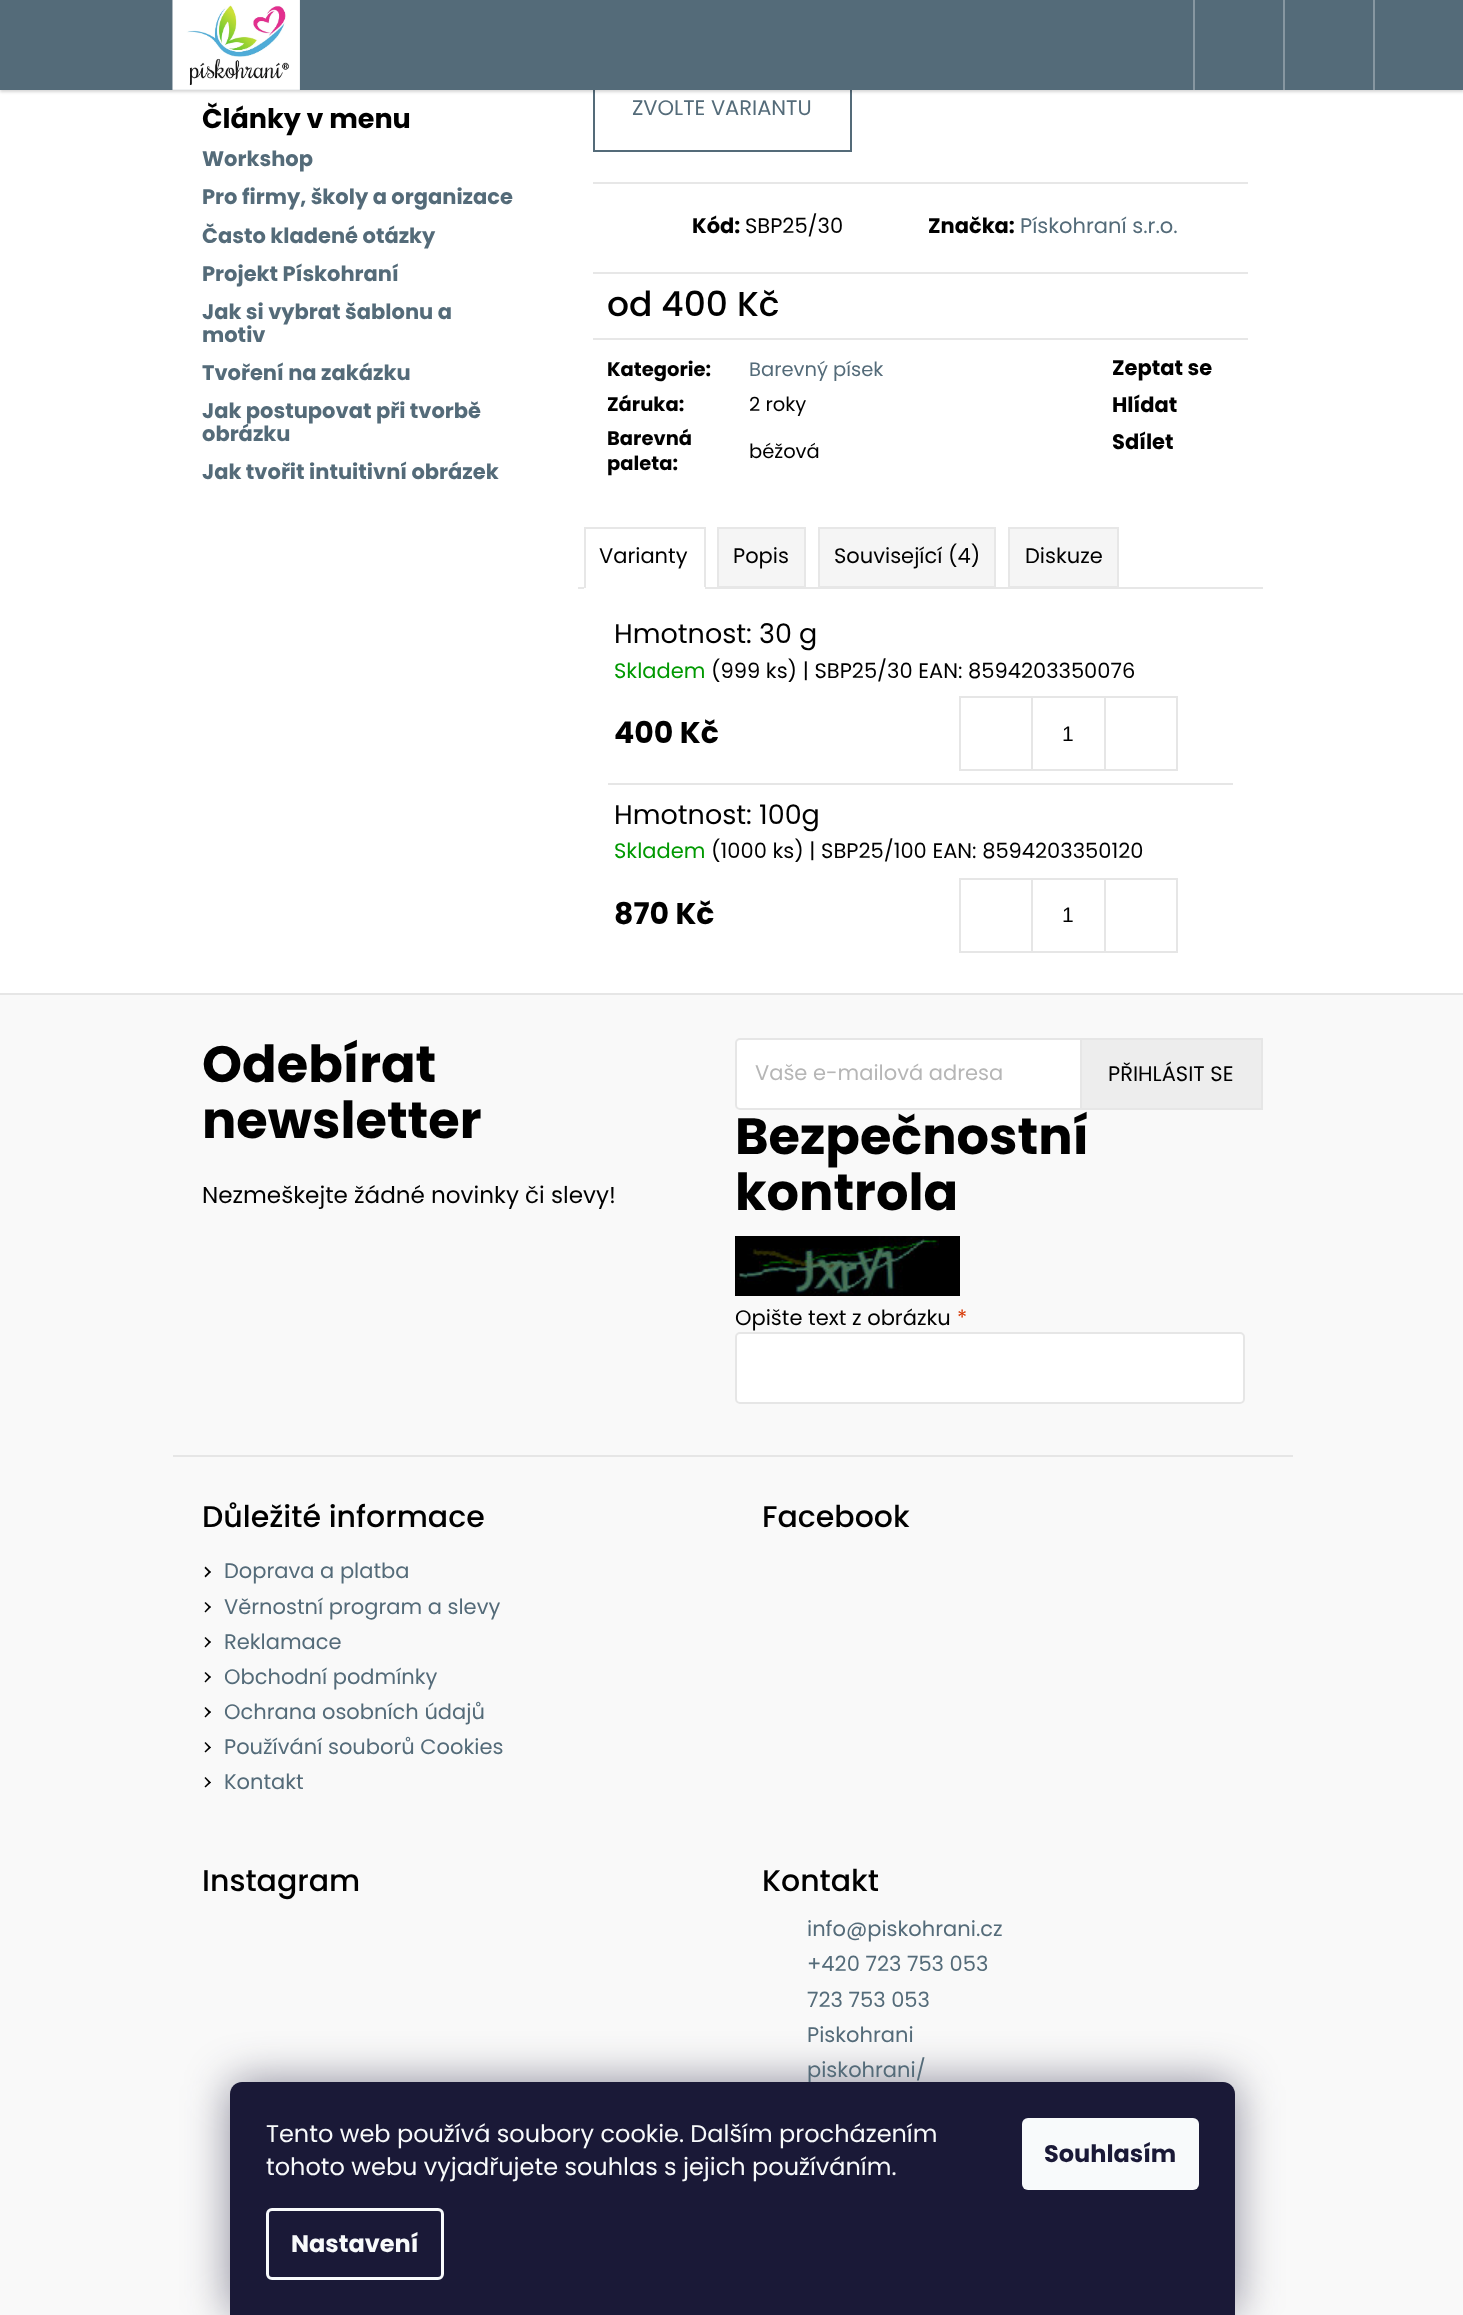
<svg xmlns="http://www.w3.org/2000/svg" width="1463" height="2315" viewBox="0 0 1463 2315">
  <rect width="100%" height="100%" fill="#fff"/>
  <path d="M594 66h257v85H594z" fill="none" stroke="#546b79" stroke-width="2"/>
  <path d="M0 2h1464v90H0z" fill="#00000029" filter="blur(1.5px)"/>
  <path d="M0 0h1463v90H0z" fill="#546b79"/>
  <image x="172" y="0" width="128" height="90" href="img/1.png"/>
  <path d="M1193 0h2v90H1193z" fill="#8797a1"/>
  <path d="M1283 0h2v90H1283z" fill="#8797a1"/>
  <path d="M1373 0h2v90H1373z" fill="#8797a1"/>
  <path d="M593 182h655v2H593z" fill="#e7e7e7"/>
  <path d="M593 272h655v2H593z" fill="#e7e7e7"/>
  <path d="M593 338h655v2H593z" fill="#e7e7e7"/>
  <path d="M578 587h685v2H578z" fill="#e7e7e7"/>
  <path d="M584 527h121v2H584z" fill="#e7e7e7"/>
  <path d="M704 527h2v61H704z" fill="#e7e7e7"/>
  <path d="M584 587h121v2H584z" fill="#fff"/>
  <path d="M584 527h2v61H584z" fill="#e7e7e7"/>
  <path d="M718 528h87v59H718z" fill="#f5f5f5" stroke="#e7e7e7" stroke-width="2"/>
  <path d="M819 528h176v59H819z" fill="#f5f5f5" stroke="#e7e7e7" stroke-width="2"/>
  <path d="M1009 528h109v59H1009z" fill="#f5f5f5" stroke="#e7e7e7" stroke-width="2"/>
  <path d="M608 783h625v2H608z" fill="#e6e6e6"/>
  <path d="M960 697h217v73H960z" fill="none" stroke="#e6e6e6" stroke-width="2"/>
  <path d="M1031 698h2v72H1031z" fill="#e6e6e6"/>
  <path d="M1104 698h2v72H1104z" fill="#e6e6e6"/>
  <path d="M960 879h217v73H960z" fill="none" stroke="#e6e6e6" stroke-width="2"/>
  <path d="M1031 879h2v72H1031z" fill="#e6e6e6"/>
  <path d="M1104 879h2v72H1104z" fill="#e6e6e6"/>
  <path d="M0 995h1463v1320H0z" fill="#f9f9f9"/>
  <path d="M0 993h1463v2H0z" fill="#e6e6e6"/>
  <path d="M173 1455h1120v2H173z" fill="#e6e6e6"/>
  <rect x="736" y="1039" width="526" height="70" rx="4" fill="#fff" stroke="#e6e6e6" stroke-width="2"/>
  <path d="M1081 1039h181v70H1081z" fill="#ededed" stroke="#e6e6e6" stroke-width="2"/>
  <image x="735" y="1236" width="225" height="60" href="img/2.png"/>
  <rect x="736" y="1333" width="508" height="70" rx="4" fill="#fff" stroke="#e6e6e6" stroke-width="2"/>
  <path d="M204.5 1568L205.5 1566.5L211 1572L209.5 1573Z" fill="#000"/>
  <path d="M204.5 1576L209.5 1571L211 1572L205.5 1577.5Z" fill="#000"/>
  <path d="M204.5 1603L205.5 1602L211 1607L209.5 1608Z" fill="#000"/>
  <path d="M204.5 1611.5L209.5 1606L211 1607L205.5 1612.5Z" fill="#000"/>
  <path d="M204.5 1638L205.5 1637L211 1642L209.5 1643Z" fill="#000"/>
  <path d="M204.5 1646.5L209.5 1641L211 1642L205.5 1647.5Z" fill="#000"/>
  <path d="M204.5 1673L205.5 1672L211 1677L209.5 1678Z" fill="#000"/>
  <path d="M204.5 1681.5L209.5 1676L211 1677L205.5 1682.5Z" fill="#000"/>
  <path d="M204.5 1708L205.5 1707L211 1712L209.5 1713.5Z" fill="#000"/>
  <path d="M204.5 1716.5L209.5 1711L211 1712L205.5 1717.5Z" fill="#000"/>
  <path d="M204.5 1743L205.5 1742L211 1747.5L209.5 1748.5Z" fill="#000"/>
  <path d="M204.5 1751.5L209.5 1746.5L211 1747.5L205.5 1752.5Z" fill="#000"/>
  <path d="M204.5 1778L205.5 1777L211 1782.5L209.5 1783.5Z" fill="#000"/>
  <path d="M204.5 1786.5L209.5 1781.5L211 1782.5L205.5 1787.5Z" fill="#000"/>
  <rect x="230" y="2082" width="1005" height="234" rx="12" fill="#1b193980" filter="blur(22.5px)"/>
  <text x="202" y="128" font-family="Poppins" font-size="27" font-weight="bold" fill="#000">Články v menu</text>
  <g font-family="Poppins" font-size="21" font-weight="bold" fill="#546b79">
    <text x="202" y="166">Workshop</text>
    <text x="202" y="204">Pro firmy, školy a organizace</text>
    <text x="202" y="243">Často kladené otázky</text>
    <text x="202" y="281">Projekt Pískohraní</text>
    <text x="202" y="319">Jak si vybrat šablonu a</text>
    <text x="202" y="342">motiv</text>
    <text x="202" y="380">Tvoření na zakázku</text>
    <text x="202" y="418">Jak postupovat při tvorbě</text>
    <text x="202" y="441">obrázku</text>
    <text x="202" y="479">Jak tvořit intuitivní obrázek</text>
  </g>
  <text x="632" y="115" font-family="Poppins" font-size="21" fill="#546b79">ZVOLTE VARIANTU</text>
  <text x="692" y="233" font-family="Poppins" font-size="21" font-weight="bold" fill="#000">Kód:</text>
  <text x="745" y="233" font-family="Poppins" font-size="21" fill="#000">SBP25/30</text>
  <text x="928" y="233" font-family="Poppins" font-size="21" font-weight="bold" fill="#000">Značka:</text>
  <text x="1020" y="233" font-family="Poppins" font-size="21" fill="#546b79">Pískohraní s.r.o.</text>
  <text x="607" y="316" font-family="Poppins" font-size="34.5" font-weight="500" fill="#000">od 400 Kč</text>
  <text x="607" y="376" font-family="Poppins" font-size="19.5" font-weight="bold" fill="#000">Kategorie:</text>
  <text x="749" y="376" font-family="Poppins" font-size="19.5" fill="#546b79">Barevný písek</text>
  <text x="607" y="411" font-family="Poppins" font-size="19.5" font-weight="bold" fill="#000">Záruka:</text>
  <text x="749" y="411" font-family="Poppins" font-size="19.5" fill="#000">2 roky</text>
  <g font-family="Poppins" font-size="19.5" font-weight="bold" fill="#000">
    <text x="607" y="445">Barevná</text>
    <text x="607" y="470">paleta:</text>
  </g>
  <text x="749" y="458" font-family="Poppins" font-size="19.5" fill="#000">béžová</text>
  <g font-family="Poppins" font-size="21" font-weight="bold" fill="#000">
    <text x="1112" y="375">Zeptat se</text>
    <text x="1112" y="412">Hlídat</text>
    <text x="1112" y="449">Sdílet</text>
  </g>
  <g font-family="Poppins" font-size="21" fill="#000">
    <text x="599" y="563">Varianty</text>
    <text x="733" y="563">Popis</text>
    <text x="834" y="563">Související (4)</text>
    <text x="1025" y="563">Diskuze</text>
  </g>
  <text x="614" y="643" font-family="Poppins" font-size="27" fill="#000">Hmotnost: 30 g</text>
  <text x="614" y="678" font-family="Poppins" font-size="21" fill="#009901">Skladem</text>
  <text x="711" y="678" font-family="Poppins" font-size="21" fill="#000">(999 ks) | SBP25/30 EAN: 8594203350076</text>
  <text x="614" y="743" font-family="Poppins" font-size="30" font-weight="bold" fill="#000">400 Kč</text>
  <text x="1062" y="741" font-family="Liberation Sans" font-size="21" fill="#000">1</text>
  <text x="614" y="824" font-family="Poppins" font-size="27" fill="#000">Hmotnost: 100g</text>
  <text x="614" y="858" font-family="Poppins" font-size="21" fill="#009901">Skladem</text>
  <text x="711" y="858" font-family="Poppins" font-size="21" fill="#000">(1000 ks) | SBP25/100 EAN: 8594203350120</text>
  <text x="614" y="924" font-family="Poppins" font-size="30" font-weight="bold" fill="#000">870 Kč</text>
  <text x="1062" y="922" font-family="Liberation Sans" font-size="21" fill="#000">1</text>
  <g font-family="Poppins" font-size="51" font-weight="bold" fill="#000">
    <text x="202" y="1082">Odebírat</text>
    <text x="202" y="1138">newsletter</text>
  </g>
  <text x="202" y="1203" font-family="Poppins" font-size="23.1" fill="#000">Nezmeškejte žádné novinky či slevy!</text>
  <text x="755" y="1080" font-family="Poppins" font-size="21" fill="#b6b6b6">Vaše e-mailová adresa</text>
  <text x="1108" y="1081" font-family="Poppins" font-size="21" fill="#000">PŘIHLÁSIT SE</text>
  <g font-family="Poppins" font-size="51" font-weight="bold" fill="#000">
    <text x="735" y="1154">Bezpečnostní</text>
    <text x="735" y="1210">kontrola</text>
  </g>
  <text x="735" y="1325" font-family="Poppins" font-size="21" fill="#000">Opište text z obrázku</text>
  <text x="957" y="1325" font-family="Poppins" font-size="21" fill="#d63500">*</text>
  <text x="202" y="1527" font-family="Poppins" font-size="30" font-weight="500" fill="#000">Důležité informace</text>
  <g font-family="Poppins" font-size="21" fill="#546b79">
    <text x="224" y="1578">Doprava a platba</text>
    <text x="224" y="1614">Věrnostní program a slevy</text>
    <text x="224" y="1649">Reklamace</text>
    <text x="224" y="1684">Obchodní podmínky</text>
    <text x="224" y="1719">Ochrana osobních údajů</text>
    <text x="224" y="1754">Používání souborů Cookies</text>
    <text x="224" y="1789">Kontakt</text>
  </g>
  <g font-family="Poppins" font-size="30" font-weight="500" fill="#000">
    <text x="762" y="1527">Facebook</text>
    <text x="202" y="1891">Instagram</text>
    <text x="762" y="1891">Kontakt</text>
  </g>
  <g font-family="Poppins" font-size="21" fill="#546b79">
    <text x="807" y="1936">info@piskohrani.cz</text>
    <text x="807" y="1971">+420 723 753 053</text>
    <text x="807" y="2007">723 753 053</text>
    <text x="807" y="2042">Piskohrani</text>
    <text x="807" y="2077">piskohrani/</text>
  </g>
  <path d="M242 2082H1223C1229.5 2082 1235 2087.5 1235 2094V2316H230V2094C230 2087.5 235.5 2082 242 2082Z" fill="#1a1937"/>
  <g font-family="Poppins" font-size="24" fill="#f8fafb">
    <text x="266" y="2142">Tento web používá soubory cookie. Dalším procházením</text>
    <text x="266" y="2175">tohoto webu vyjadřujete souhlas s jejich používáním.</text>
  </g>
  <rect x="267.5" y="2209.5" width="175" height="69" rx="4.5" fill="none" stroke="#f8fafb" stroke-width="3"/>
  <text x="291" y="2252" font-family="Poppins" font-size="24" font-weight="bold" fill="#f8fafb">Nastavení</text>
  <rect x="1022" y="2118" width="177" height="72" rx="6" fill="#f8fafb"/>
  <text x="1044" y="2162" font-family="Poppins" font-size="24" font-weight="bold" fill="#1a1937">Souhlasím</text>
</svg>
